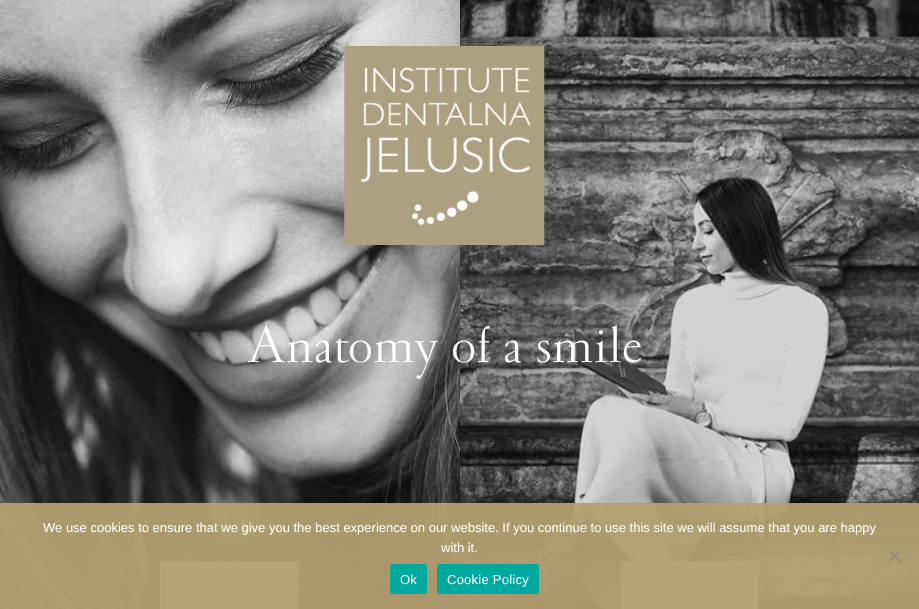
<svg xmlns="http://www.w3.org/2000/svg" width="919" height="609" viewBox="0 0 919 609">
  <rect width="100%" height="100%" fill="#fff"/>
  <image x="0" y="0" width="460" height="609" href="img/1.png"/>
  <path d="M160.5 562.5h138v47H160.5z" fill="#b3c7c8" stroke="#fff"/>
  <image x="460" y="0" width="459" height="609" href="img/2.png"/>
  <path d="M621.5 562.5h136v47H621.5z" fill="#b3c7c8" stroke="#fff"/>
  <image x="344" y="46" width="201" height="199" href="img/3.png"/>
  <path d="M0 503h919v106H0z" fill="#b49f72f2"/>
  <path d="M899.5 550.5L901 552L890.5 562.5L889 561Z" fill="#80808080"/>
  <path d="M889 552L890.5 550.5L901 561L899.5 562.5Z" fill="#80808080"/>
  <rect x="390" y="564" width="37" height="30" rx="3" fill="#00a99d"/>
  <rect x="437" y="564" width="102" height="30" rx="3" fill="#00a99d"/>
  <text x="247" y="362" font-family="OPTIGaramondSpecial" font-size="54" font-weight="300" fill="#fff">Anatomy of a smile</text>
  <g font-family="Liberation Sans" font-size="13" fill="#fff">
    <text x="43" y="532">We use cookies to ensure that we give you the best experience on our website. If you continue to use this site we will assume that you are happy</text>
    <text x="441" y="552">with it.</text>
  </g>
  <g font-family="Liberation Sans" font-size="13" letter-spacing="0.25" fill="#fff">
    <text x="400" y="584">Ok</text>
    <text x="447" y="584">Cookie Policy</text>
  </g>
</svg>
